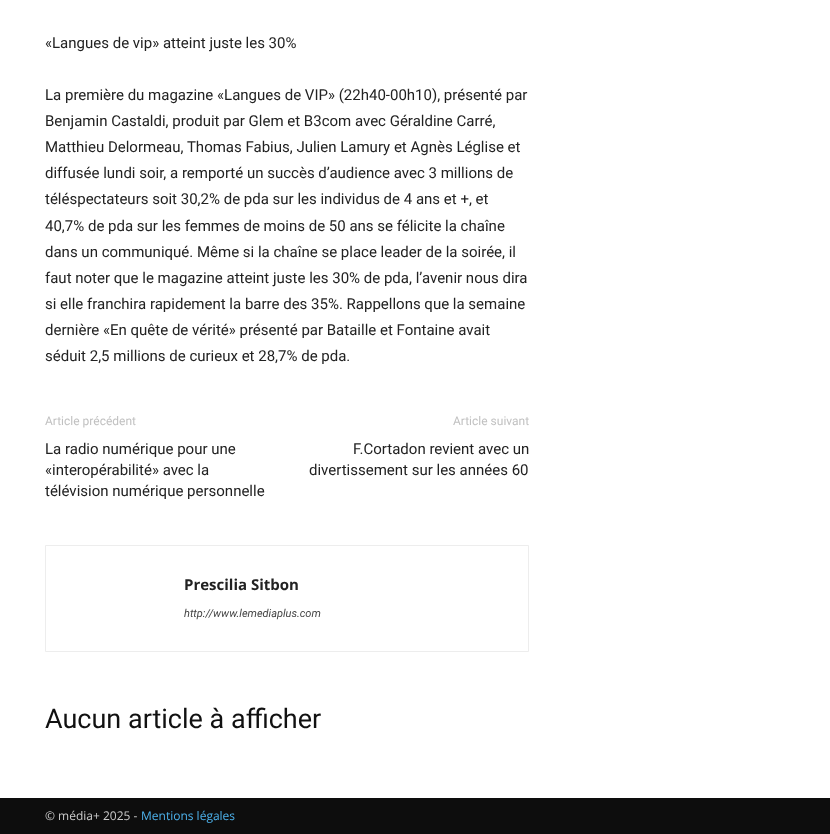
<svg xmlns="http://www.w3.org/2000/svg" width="830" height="834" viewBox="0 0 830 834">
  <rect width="100%" height="100%" fill="#fff"/>
  <path d="M45.5 545.5h483v106H45.5z" fill="none" stroke="#ededed"/>
  <path d="M0 798h830v36H0z" fill="#0d0d0d"/>
  <g font-family="Roboto" font-size="15" fill="#222">
    <text x="45" y="48">«Langues de vip» atteint juste les 30%</text>
    <text x="45" y="100">La première du magazine «Langues de VIP» (22h40-00h10), présenté par</text>
    <text x="45" y="126">Benjamin Castaldi, produit par Glem et B3com avec Géraldine Carré,</text>
    <text x="45" y="152">Matthieu Delormeau, Thomas Fabius, Julien Lamury et Agnès Léglise et</text>
    <text x="45" y="178">diffusée lundi soir, a remporté un succès d’audience avec 3 millions de</text>
    <text x="45" y="204">téléspectateurs soit 30,2% de pda sur les individus de 4 ans et +, et</text>
    <text x="45" y="231">40,7% de pda sur les femmes de moins de 50 ans se félicite la chaîne</text>
    <text x="45" y="257">dans un communiqué. Même si la chaîne se place leader de la soirée, il</text>
    <text x="45" y="283">faut noter que le magazine atteint juste les 30% de pda, l’avenir nous dira</text>
    <text x="45" y="309">si elle franchira rapidement la barre des 35%. Rappellons que la semaine</text>
    <text x="45" y="335">dernière «En quête de vérité» présenté par Bataille et Fontaine avait</text>
    <text x="45" y="361">séduit 2,5 millions de curieux et 28,7% de pda.</text>
  </g>
  <text x="45" y="425" font-family="Roboto" font-size="12" fill="#c1c1c1">Article précédent</text>
  <g font-family="Roboto" font-size="15" fill="#222">
    <text x="45" y="454">La radio numérique pour une</text>
    <text x="45" y="475">«interopérabilité» avec la</text>
    <text x="45" y="496">télévision numérique personnelle</text>
  </g>
  <text x="453" y="425" font-family="Roboto" font-size="12" fill="#c1c1c1">Article suivant</text>
  <g font-family="Roboto" font-size="15" fill="#222">
    <text x="353" y="454">F.Cortadon revient avec un</text>
    <text x="309" y="475">divertissement sur les années 60</text>
  </g>
  <text x="184" y="590" font-family="Open Sans" font-size="15" font-weight="bold" fill="#222">Prescilia Sitbon</text>
  <text x="184" y="617" font-family="Roboto" font-size="11" font-style="italic" fill="#444">http://www.lemediaplus.com</text>
  <text x="45" y="728" font-family="Roboto" font-size="27" fill="#111">Aucun article à afficher</text>
  <text x="45" y="820" font-family="Open Sans" font-size="12" fill="#ccc">© média+ 2025 -</text>
  <text x="141" y="820" font-family="Open Sans" font-size="12" fill="#4db2ec">Mentions légales</text>
</svg>
